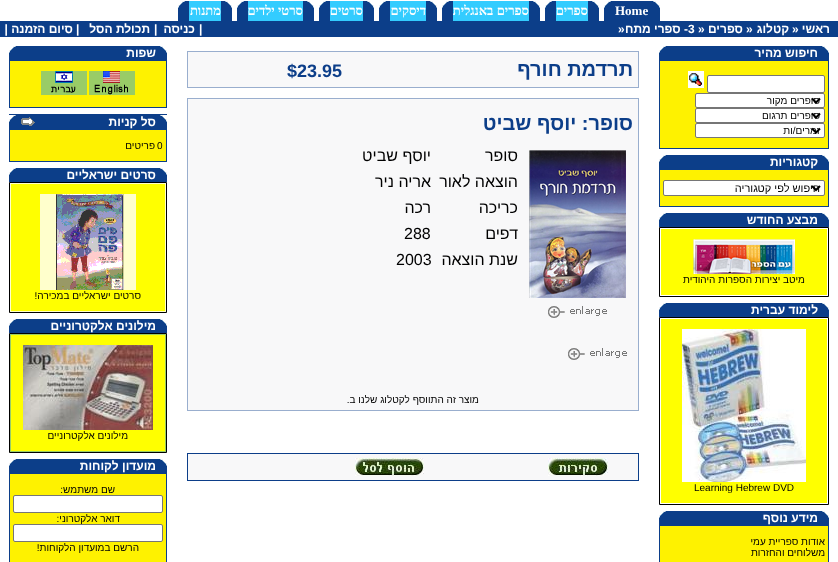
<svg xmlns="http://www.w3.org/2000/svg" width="838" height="562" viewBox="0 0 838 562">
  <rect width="100%" height="100%" fill="#fff"/>
  <image x="649" y="1" width="11" height="14" href="img/1.png"/>
  <path d="M615 1h34v20H615z" fill="#0c3e89"/>
  <image x="604" y="1" width="11" height="14" href="img/2.png"/>
  <path d="M649 15h11v6H649z" fill="#0c3e89"/>
  <path d="M604 15h11v6H604z" fill="#0c3e89"/>
  <image x="588" y="1" width="11" height="14" href="img/1.png"/>
  <path d="M556 1h32v20H556z" fill="#3cf"/>
  <image x="545" y="1" width="11" height="14" href="img/2.png"/>
  <path d="M588 15h11v6H588z" fill="#0c3e89"/>
  <path d="M545 15h11v6H545z" fill="#0c3e89"/>
  <image x="529" y="1" width="11" height="14" href="img/1.png"/>
  <path d="M453 1h76v20H453z" fill="#3cf"/>
  <image x="442" y="1" width="11" height="14" href="img/2.png"/>
  <path d="M529 15h11v6H529z" fill="#0c3e89"/>
  <path d="M442 15h11v6H442z" fill="#0c3e89"/>
  <image x="426" y="1" width="11" height="14" href="img/1.png"/>
  <path d="M390 1h36v20H390z" fill="#3cf"/>
  <image x="379" y="1" width="11" height="14" href="img/2.png"/>
  <path d="M426 15h11v6H426z" fill="#0c3e89"/>
  <path d="M379 15h11v6H379z" fill="#0c3e89"/>
  <image x="363" y="1" width="11" height="14" href="img/1.png"/>
  <path d="M330 1h33v20H330z" fill="#3cf"/>
  <image x="319" y="1" width="11" height="14" href="img/2.png"/>
  <path d="M363 15h11v6H363z" fill="#0c3e89"/>
  <path d="M319 15h11v6H319z" fill="#0c3e89"/>
  <image x="303" y="1" width="11" height="14" href="img/1.png"/>
  <path d="M248 1h55v20H248z" fill="#3cf"/>
  <image x="237" y="1" width="11" height="14" href="img/2.png"/>
  <path d="M303 15h11v6H303z" fill="#0c3e89"/>
  <path d="M237 15h11v6H237z" fill="#0c3e89"/>
  <image x="221" y="1" width="11" height="14" href="img/1.png"/>
  <path d="M189 1h32v20H189z" fill="#3cf"/>
  <image x="178" y="1" width="11" height="14" href="img/2.png"/>
  <path d="M221 15h11v6H221z" fill="#0c3e89"/>
  <path d="M178 15h11v6H178z" fill="#0c3e89"/>
  <path d="M0 21h838v16H0z" fill="#0c3e89"/>
  <path d="M659 46h170v103H659z" fill="#0c3e89"/>
  <image x="822" y="46" width="7" height="7" href="img/3.png"/>
  <image x="659" y="46" width="7" height="7" href="img/4.png"/>
  <path d="M660 61h168v87H660z" fill="#fef200"/>
  <rect x="707.5" y="75.5" width="117" height="17" rx="1.5" fill="#fff" stroke="#767676"/>
  <image x="688" y="71" width="16" height="17" href="img/5.png"/>
  <rect x="695.5" y="93.5" width="129" height="14" rx="1.5" fill="#fff" stroke="#767676"/>
  <path d="M812 98.5L816 102.5L820 98.5" fill="none" stroke="#000" stroke-width="2"/>
  <rect x="695.5" y="108.5" width="129" height="14" rx="1.5" fill="#fff" stroke="#767676"/>
  <path d="M812 113.5L816 117.5L820 113.5" fill="none" stroke="#000" stroke-width="2"/>
  <rect x="695.5" y="123.5" width="129" height="14" rx="1.5" fill="#fff" stroke="#767676"/>
  <path d="M812 128.5L816 132.5L820 128.5" fill="none" stroke="#000" stroke-width="2"/>
  <path d="M659 155h170v52H659z" fill="#0c3e89"/>
  <image x="822" y="155" width="7" height="7" href="img/3.png"/>
  <image x="659" y="155" width="7" height="7" href="img/4.png"/>
  <path d="M660 170h168v36H660z" fill="#fef200"/>
  <rect x="663.5" y="180.5" width="161" height="15" rx="1.5" fill="#fff" stroke="#767676"/>
  <path d="M812 186L816 190L820 186" fill="none" stroke="#000" stroke-width="2"/>
  <path d="M659 213h170v14H659z" fill="#0c3e89"/>
  <image x="822" y="213" width="7" height="7" href="img/3.png"/>
  <image x="659" y="213" width="7" height="7" href="img/4.png"/>
  <path d="M659.5 227.5h169v69H659.5z" fill="none" stroke="#000"/>
  <path d="M661 229h166v66H661z" fill="#ff0"/>
  <image x="693" y="239" width="102" height="35" href="img/6.png"/>
  <path d="M659 303h170v14H659z" fill="#0c3e89"/>
  <image x="822" y="303" width="7" height="7" href="img/3.png"/>
  <image x="659" y="303" width="7" height="7" href="img/4.png"/>
  <path d="M659.5 317.5h169v187H659.5z" fill="none" stroke="#000"/>
  <path d="M661 319h166v184H661z" fill="#ff0"/>
  <image x="682" y="329" width="124" height="153" href="img/7.png"/>
  <path d="M659 511h170v51H659z" fill="#0c3e89"/>
  <image x="822" y="511" width="7" height="7" href="img/3.png"/>
  <image x="659" y="511" width="7" height="7" href="img/4.png"/>
  <path d="M660 526h168v36H660z" fill="#fef200"/>
  <path d="M187 51h452v37H187z" fill="#99aece"/>
  <path d="M188 52h450v35H188z" fill="#f8f8f9"/>
  <path d="M187 98h452v313H187z" fill="#99aece"/>
  <path d="M188 99h450v311H188z" fill="#f8f8f9"/>
  <image x="529" y="150" width="97" height="148" href="img/8.png"/>
  <image x="548" y="306" width="59" height="12" href="img/9.png"/>
  <image x="568" y="348" width="59" height="12" href="img/9.png"/>
  <path d="M187 453h452v28H187z" fill="#0c3e89"/>
  <path d="M188 454h450v26H188z" fill="#f8f8f9"/>
  <image x="548" y="458" width="60" height="18" href="img/10.png"/>
  <image x="355" y="458" width="69" height="18" href="img/11.png"/>
  <path d="M9 46h158v62H9z" fill="#0c3e89"/>
  <image x="160" y="46" width="7" height="7" href="img/3.png"/>
  <image x="9" y="46" width="7" height="7" href="img/4.png"/>
  <path d="M10 61h156v46H10z" fill="#fef200"/>
  <image x="89" y="71" width="46" height="24" href="img/12.png"/>
  <image x="41" y="71" width="46" height="24" href="img/13.png"/>
  <path d="M9 114h158v48H9z" fill="#0c3e89"/>
  <image x="160" y="115" width="7" height="7" href="img/3.png"/>
  <image x="21" y="117" width="14" height="9" href="img/14.png"/>
  <image x="9" y="115" width="7" height="7" href="img/4.png"/>
  <path d="M10 130h156v31H10z" fill="#fef200"/>
  <path d="M9 168h158v14H9z" fill="#0c3e89"/>
  <image x="160" y="168" width="7" height="7" href="img/3.png"/>
  <image x="9" y="168" width="7" height="7" href="img/4.png"/>
  <path d="M9.5 182.5h157v130H9.5z" fill="#ffc" stroke="#000"/>
  <path d="M11 184h154v127H11z" fill="#ff0"/>
  <image x="40" y="194" width="96" height="96" href="img/15.png"/>
  <path d="M9 319h158v14H9z" fill="#0c3e89"/>
  <image x="160" y="319" width="7" height="7" href="img/3.png"/>
  <image x="9" y="319" width="7" height="7" href="img/4.png"/>
  <path d="M9.5 333.5h157v119H9.5z" fill="#9c6" stroke="#000"/>
  <path d="M11 335h154v116H11z" fill="#ff0"/>
  <image x="23" y="345" width="130" height="85" href="img/16.png"/>
  <path d="M9 459h158v103H9z" fill="#0c3e89"/>
  <image x="160" y="459" width="7" height="7" href="img/3.png"/>
  <image x="9" y="459" width="7" height="7" href="img/4.png"/>
  <path d="M10 474h156v88H10z" fill="#fef200"/>
  <rect x="13.5" y="495.5" width="149" height="17" rx="1.5" fill="#fff" stroke="#767676"/>
  <rect x="13.5" y="524.5" width="149" height="17" rx="1.5" fill="#fff" stroke="#767676"/>
  <text x="615" y="15" font-family="Liberation Serif" font-size="13" font-weight="bold" fill="#fff">Home</text>
  <g font-family="Liberation Serif" font-size="13" font-weight="bold" direction="rtl" fill="#fff">
    <text x="588" y="15">ספרים</text>
    <text x="529" y="15">ספרים באנגלית</text>
    <text x="426" y="15">דיסקים</text>
    <text x="363" y="15">סרטים</text>
    <text x="303" y="15">סרטי ילדים</text>
    <text x="221" y="15">מתנות</text>
  </g>
  <text x="830" y="33" font-family="Liberation Sans" font-size="12" font-weight="bold" direction="rtl" fill="#fff">ראשי</text>
  <text x="792" y="33" font-family="Liberation Sans" font-size="12" font-weight="bold" fill="#fff">»</text>
  <text x="789" y="33" font-family="Liberation Sans" font-size="12" font-weight="bold" direction="rtl" fill="#fff">קטלוג</text>
  <text x="746" y="33" font-family="Liberation Sans" font-size="12" font-weight="bold" fill="#fff">»</text>
  <text x="743" y="33" font-family="Liberation Sans" font-size="12" font-weight="bold" direction="rtl" fill="#fff">ספרים</text>
  <g font-family="Liberation Sans" font-size="12" font-weight="bold" fill="#fff">
    <text x="698" y="33">»</text>
    <text x="688" y="33">3</text>
  </g>
  <text x="688" y="33" font-family="Liberation Sans" font-size="12" font-weight="bold" direction="rtl" fill="#fff">- ספרי מתח</text>
  <g font-family="Liberation Sans" font-size="12" font-weight="bold" fill="#fff">
    <text x="618" y="33">»</text>
    <text x="199" y="33">|</text>
  </g>
  <text x="195" y="33" font-family="Liberation Sans" font-size="12" font-weight="bold" direction="rtl" fill="#fff">כניסה</text>
  <text x="154" y="33" font-family="Liberation Sans" font-size="12" font-weight="bold" fill="#fff">|</text>
  <text x="150" y="33" font-family="Liberation Sans" font-size="12" font-weight="bold" direction="rtl" fill="#fff">תכולת הסל</text>
  <text x="76" y="33" font-family="Liberation Sans" font-size="12" font-weight="bold" fill="#fff">|</text>
  <g font-family="Liberation Sans" font-size="12" font-weight="bold" direction="rtl" fill="#fff">
    <text x="73" y="33">סיום הזמנה |</text>
    <text x="818" y="57">חיפוש מהיר</text>
  </g>
  <g font-family="Liberation Sans" font-size="10" direction="rtl" fill="#000">
    <text x="820" y="104">סופרים מקור</text>
    <text x="820" y="119">סופרים תרגום</text>
    <text x="820" y="134">זמרים/ות</text>
  </g>
  <text x="818" y="166" font-family="Liberation Sans" font-size="12" font-weight="bold" direction="rtl" fill="#fff">קטגוריות</text>
  <text x="820" y="192" font-family="Liberation Sans" font-size="11" direction="rtl" fill="#000">חיפוש לפי קטגוריה</text>
  <text x="818" y="224" font-family="Liberation Sans" font-size="12" font-weight="bold" direction="rtl" fill="#fff">מבצע החודש</text>
  <text x="805" y="283" font-family="Liberation Sans" font-size="10" direction="rtl" fill="#000">מיטב יצירות הספרות היהודית</text>
  <text x="818" y="314" font-family="Liberation Sans" font-size="12" font-weight="bold" direction="rtl" fill="#fff">לימוד עברית</text>
  <text x="694" y="491" font-family="Liberation Sans" font-size="10" fill="#000">Learning Hebrew DVD</text>
  <text x="818" y="522" font-family="Liberation Sans" font-size="12" font-weight="bold" direction="rtl" fill="#fff">מידע נוסף</text>
  <g font-family="Liberation Sans" font-size="10" direction="rtl" fill="#000">
    <text x="825" y="545">אודות ספריית עמי</text>
    <text x="825" y="556">משלוחים והחזרות</text>
  </g>
  <text x="633" y="76" font-family="Liberation Sans" font-size="20" font-weight="bold" direction="rtl" fill="#0c3e89">תרדמת חורף</text>
  <text x="287" y="77" font-family="Liberation Sans" font-size="18" font-weight="bold" fill="#0c3e89">$23.95</text>
  <text x="633" y="130" font-family="Liberation Sans" font-size="20" font-weight="bold" direction="rtl" fill="#0c3e89">סופר: יוסף שביט</text>
  <g font-family="Liberation Sans" font-size="16" direction="rtl" fill="#000">
    <text x="518" y="161">סופר</text>
    <text x="431" y="161">יוסף שביט</text>
    <text x="518" y="187">הוצאה לאור</text>
    <text x="431" y="187">אריה ניר</text>
    <text x="518" y="213">כריכה</text>
    <text x="431" y="213">רכה</text>
    <text x="518" y="239">דפים</text>
  </g>
  <text x="404" y="239" font-family="Liberation Sans" font-size="16" fill="#000">288</text>
  <text x="518" y="265" font-family="Liberation Sans" font-size="16" direction="rtl" fill="#000">שנת הוצאה</text>
  <text x="396" y="265" font-family="Liberation Sans" font-size="16" fill="#000">2003</text>
  <text x="479" y="403" font-family="Liberation Sans" font-size="10" direction="rtl" fill="#000">מוצר זה התווסף לקטלוג שלנו ב.</text>
  <g font-family="Liberation Sans" font-size="12" font-weight="bold" direction="rtl" fill="#fff">
    <text x="156" y="57">שפות</text>
    <text x="156" y="126">סל קניות</text>
  </g>
  <text x="157" y="149" font-family="Liberation Sans" font-size="10" fill="#000">0</text>
  <text x="155" y="149" font-family="Liberation Sans" font-size="10" direction="rtl" fill="#000">פריטים</text>
  <text x="156" y="179" font-family="Liberation Sans" font-size="12" font-weight="bold" direction="rtl" fill="#fff">סרטים ישראליים</text>
  <text x="141" y="299" font-family="Liberation Sans" font-size="10" direction="rtl" fill="#000">סרטים ישראליים במכירה!</text>
  <text x="156" y="330" font-family="Liberation Sans" font-size="12" font-weight="bold" direction="rtl" fill="#fff">מילונים אלקטרוניים</text>
  <text x="128" y="439" font-family="Liberation Sans" font-size="10" direction="rtl" fill="#000">מילונים אלקטרוניים</text>
  <text x="156" y="470" font-family="Liberation Sans" font-size="12" font-weight="bold" direction="rtl" fill="#fff">מועדון לקוחות</text>
  <g font-family="Liberation Sans" font-size="10" direction="rtl" fill="#000">
    <text x="115" y="493">שם משתמש:</text>
    <text x="120" y="522">דואר אלקטרוני:</text>
    <text x="139" y="551">הרשם במועדון הלקוחות!</text>
  </g>
</svg>
